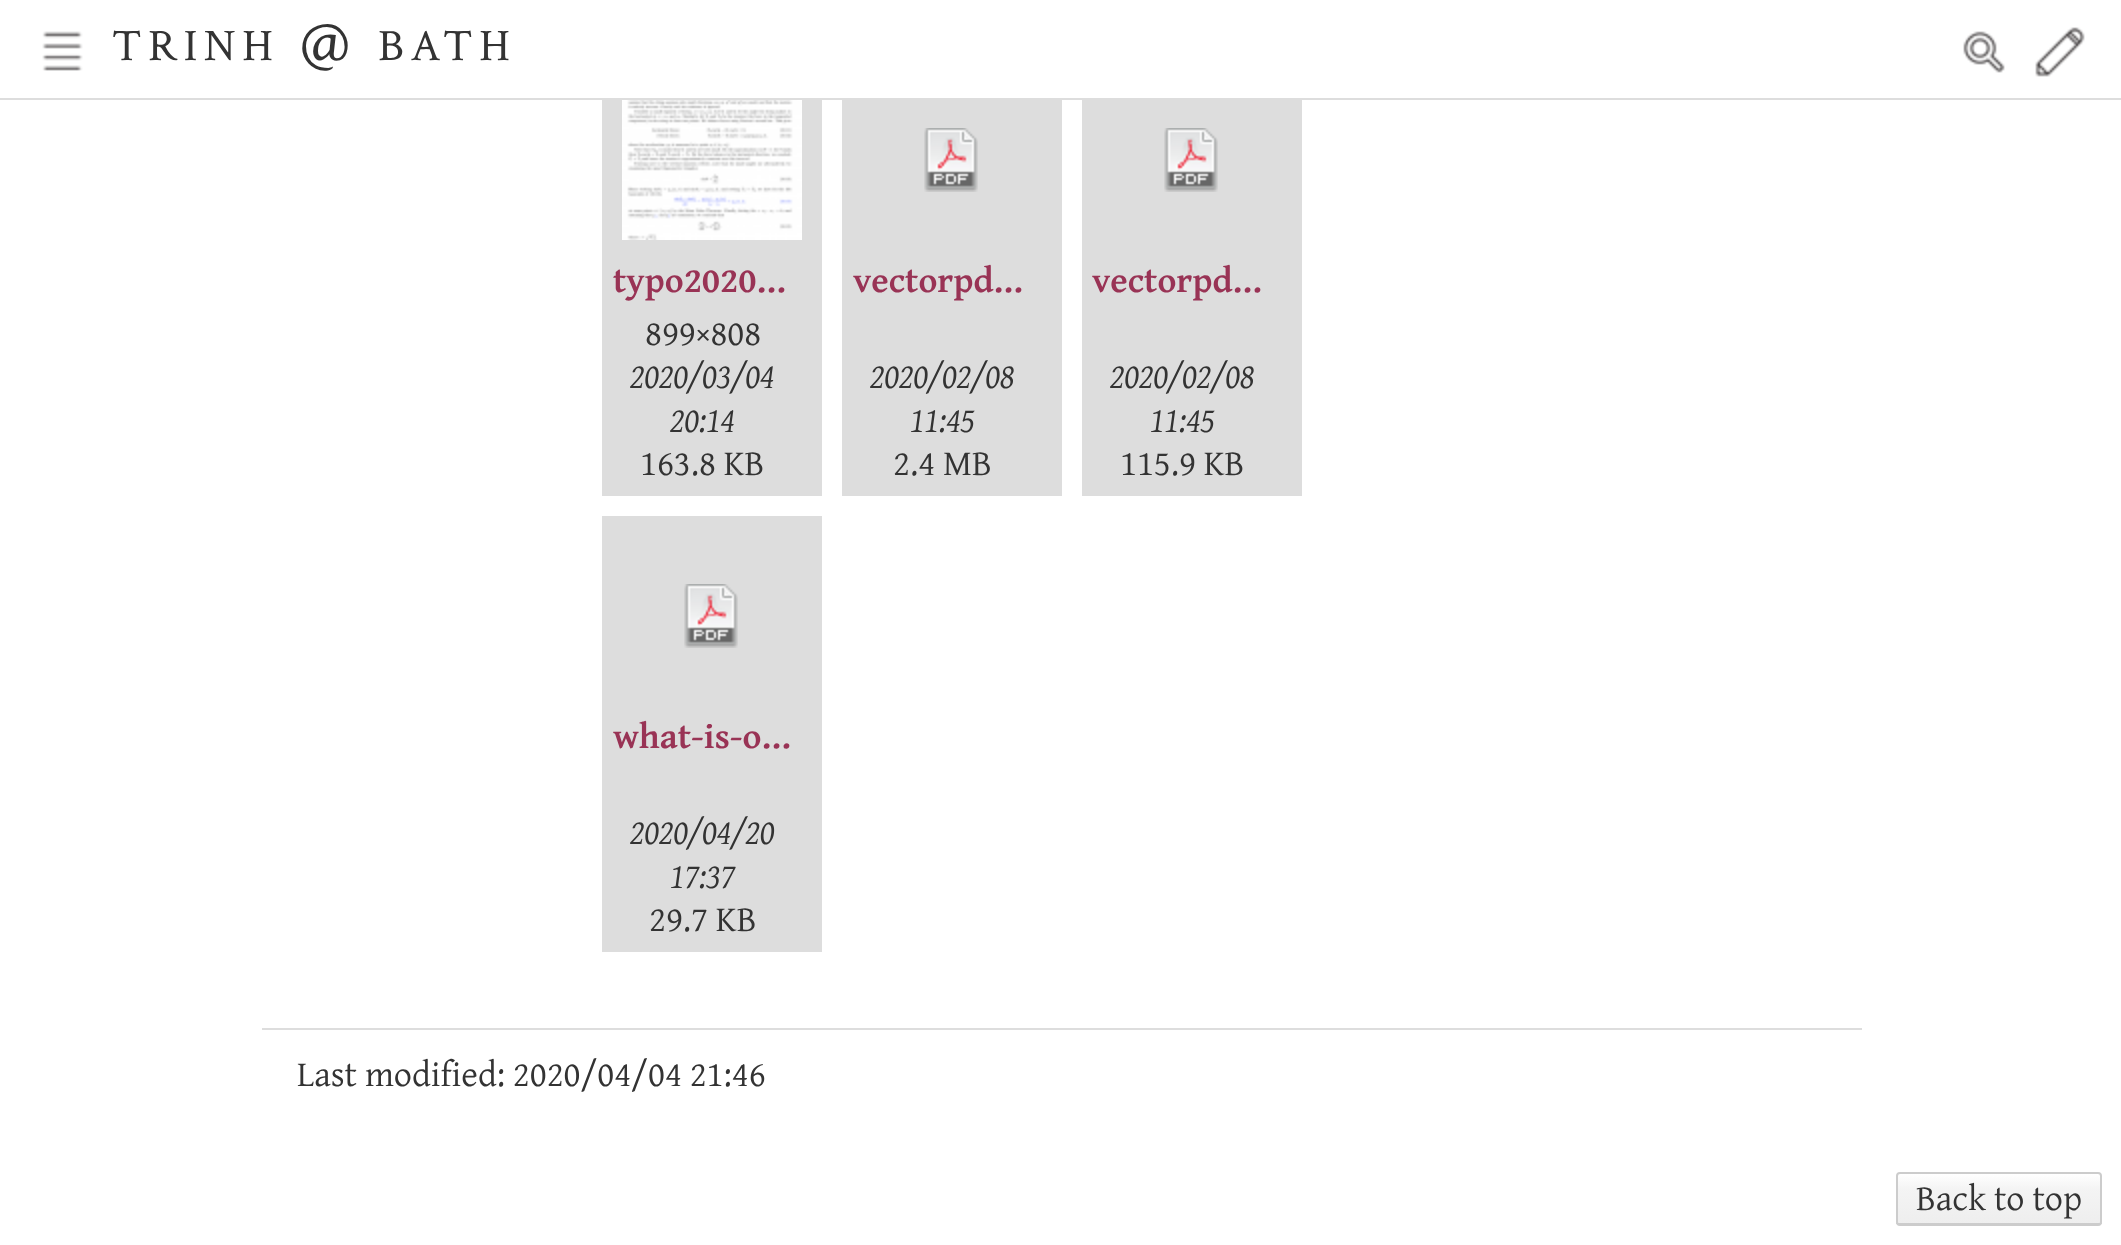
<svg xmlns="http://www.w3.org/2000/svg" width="2121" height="1245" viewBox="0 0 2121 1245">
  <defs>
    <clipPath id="clip1"><rect x="1896" y="1172" width="206" height="54" rx="4"/></clipPath>
    <linearGradient id="g1" gradientUnits="userSpaceOnUse" x1="1999" y1="1174" x2="1999" y2="1224"><stop offset="0" stop-color="#fff"/><stop offset="0.3" stop-color="#f4f4f4"/><stop offset="0.99" stop-color="#eee"/><stop offset="0.99" stop-color="#ccc"/></linearGradient>
  </defs>
  <rect width="100%" height="100%" fill="#fff"/>
  <path d="M0 98h2121v2H0z" fill="#ddd"/>
  <image x="42" y="31" width="41" height="40" href="img/1.png"/>
  <image x="1963" y="31" width="42" height="42" href="img/2.png"/>
  <image x="2035" y="27" width="50" height="50" href="img/3.png"/>
  <path d="M602 100h220v396H602z" fill="#ddd"/>
  <image x="622" y="100" width="180" height="140" href="img/4.png"/>
  <path d="M842 100h220v396H842z" fill="#ddd"/>
  <image x="924" y="128" width="54" height="64" href="img/5.png"/>
  <path d="M1082 100h220v396H1082z" fill="#ddd"/>
  <image x="1164" y="128" width="54" height="64" href="img/5.png"/>
  <path d="M602 516h220v436H602z" fill="#ddd"/>
  <image x="684" y="584" width="54" height="64" href="img/5.png"/>
  <path d="M262 1028h1600v2H262z" fill="#ddd"/>
  <g clip-path="url(#clip1)">
    <path d="M1896 1174h206v50H1896z" fill="url(#g1)"/>
  </g>
  <rect x="1897" y="1173" width="204" height="52" rx="3" fill="none" stroke="#ccc" stroke-width="2"/>
  <text x="112" y="60" font-family="Crimson Text" font-size="45" letter-spacing="6.5" fill="#333">TRINH</text>
  <text x="299" y="60" font-family="Crimson Text" font-size="64" letter-spacing="6.5" fill="#333">@</text>
  <text x="378" y="60" font-family="Crimson Text" font-size="45" letter-spacing="6.5" fill="#333">BATH</text>
  <text x="613" y="292" font-family="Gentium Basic" font-size="36" font-weight="bold" fill="#935">typo2020…</text>
  <text x="645" y="345" font-family="Gentium Basic" font-size="36" fill="#333">899×808</text>
  <g font-family="Gentium Basic" font-size="36" font-style="italic" fill="#333">
    <text x="630" y="388">2020/03/04</text>
    <text x="670" y="432">20:14</text>
  </g>
  <text x="640" y="475" font-family="Gentium Basic" font-size="36" fill="#333">163.8 KB</text>
  <text x="853" y="292" font-family="Gentium Basic" font-size="36" font-weight="bold" fill="#935">vectorpd…</text>
  <g font-family="Gentium Basic" font-size="36" font-style="italic" fill="#333">
    <text x="870" y="388">2020/02/08</text>
    <text x="910" y="432">11:45</text>
  </g>
  <text x="893" y="475" font-family="Gentium Basic" font-size="36" fill="#333">2.4 MB</text>
  <text x="1092" y="292" font-family="Gentium Basic" font-size="36" font-weight="bold" fill="#935">vectorpd…</text>
  <g font-family="Gentium Basic" font-size="36" font-style="italic" fill="#333">
    <text x="1110" y="388">2020/02/08</text>
    <text x="1150" y="432">11:45</text>
  </g>
  <text x="1120" y="475" font-family="Gentium Basic" font-size="36" fill="#333">115.9 KB</text>
  <text x="613" y="748" font-family="Gentium Basic" font-size="36" font-weight="bold" fill="#935">what-is-o…</text>
  <g font-family="Gentium Basic" font-size="36" font-style="italic" fill="#333">
    <text x="630" y="844">2020/04/20</text>
    <text x="670" y="888">17:37</text>
  </g>
  <g font-family="Gentium Basic" font-size="36" fill="#333">
    <text x="649" y="931">29.7 KB</text>
    <text x="297" y="1086">Last modified: 2020/04/04 21:46</text>
    <text x="1916" y="1210">Back to top</text>
  </g>
</svg>
